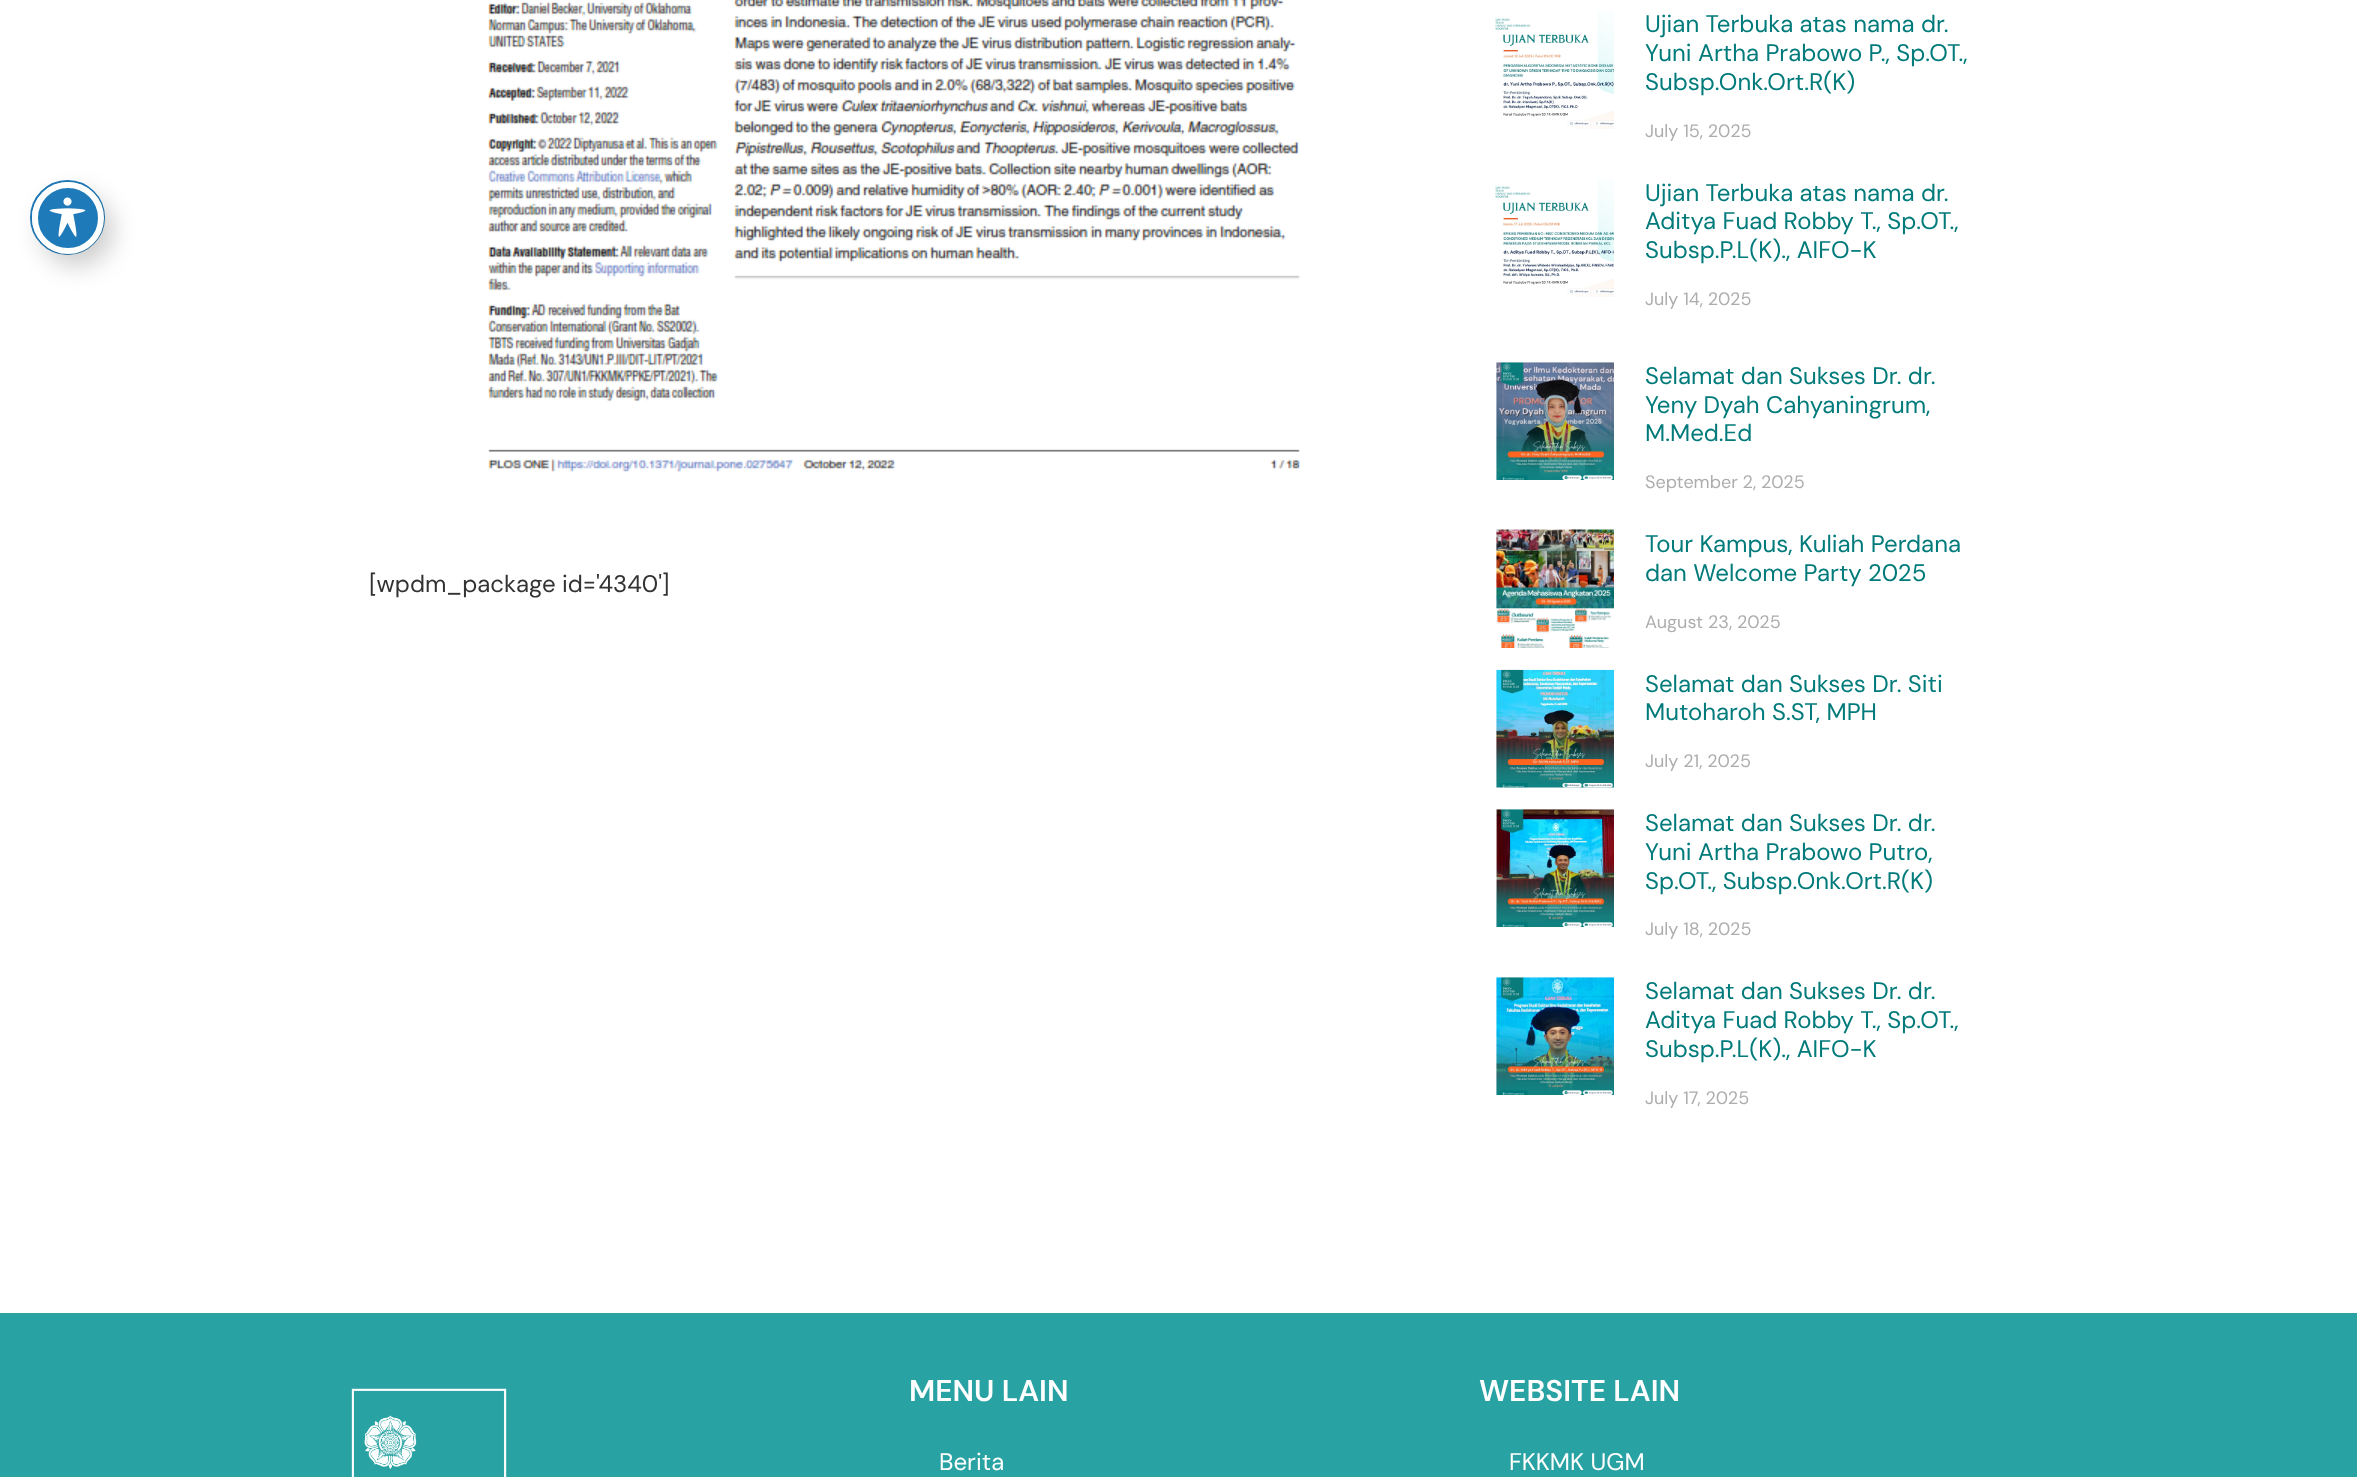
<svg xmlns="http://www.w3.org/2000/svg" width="2357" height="1477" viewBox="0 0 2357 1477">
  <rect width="100%" height="100%" fill="#fff"/>
  <circle cx="67.5" cy="217.5" r="36.5" fill="none" stroke="#1e7ab9" stroke-width="2"/>
  <rect x="41" y="194" width="72" height="72" rx="36" fill="#00000033" filter="blur(12px)"/>
  <circle cx="68" cy="218" r="33" fill="#1e7ab9" stroke="#fff" stroke-width="6"/>
  <image x="49" y="197" width="37" height="40" href="img/1.png"/>
  <image x="487" y="0" width="814" height="473" href="img/2.png"/>
  <image x="1495" y="11" width="119" height="118" href="img/3.png"/>
  <image x="1495" y="179" width="119" height="118" href="img/4.png"/>
  <image x="1496" y="362" width="118" height="118" href="img/5.png"/>
  <image x="1496" y="529" width="118" height="119" href="img/6.png"/>
  <image x="1496" y="669" width="118" height="119" href="img/7.png"/>
  <image x="1496" y="809" width="118" height="118" href="img/8.png"/>
  <image x="1496" y="977" width="118" height="118" href="img/9.png"/>
  <path d="M0 1313h2357v164H0z" fill="#28a2a2"/>
  <image x="351" y="1388" width="156" height="89" href="img/10.png"/>
  <text x="369" y="592" font-family="DM Sans" font-size="24" fill="#333">[wpdm_package id='4340']</text>
  <g font-family="DM Sans" font-size="24" fill="#007a7a">
    <text x="1645" y="32">Ujian Terbuka atas nama dr.</text>
    <text x="1645" y="61">Yuni Artha Prabowo P., Sp.OT.,</text>
    <text x="1645" y="90">Subsp.Onk.Ort.R(K)</text>
  </g>
  <text x="1645" y="137" font-family="DM Sans" font-size="18" fill="#adadad">July 15, 2025</text>
  <g font-family="DM Sans" font-size="24" fill="#007a7a">
    <text x="1645" y="201">Ujian Terbuka atas nama dr.</text>
    <text x="1645" y="229">Aditya Fuad Robby T., Sp.OT.,</text>
    <text x="1645" y="258">Subsp.P.L(K)., AIFO-K</text>
  </g>
  <text x="1645" y="305" font-family="DM Sans" font-size="18" fill="#adadad">July 14, 2025</text>
  <g font-family="DM Sans" font-size="24" fill="#007a7a">
    <text x="1645" y="384">Selamat dan Sukses Dr. dr.</text>
    <text x="1645" y="413">Yeny Dyah Cahyaningrum,</text>
    <text x="1645" y="441">M.Med.Ed</text>
  </g>
  <text x="1645" y="488" font-family="DM Sans" font-size="18" fill="#adadad">September 2, 2025</text>
  <g font-family="DM Sans" font-size="24" fill="#007a7a">
    <text x="1645" y="552">Tour Kampus, Kuliah Perdana</text>
    <text x="1645" y="581">dan Welcome Party 2025</text>
  </g>
  <text x="1645" y="628" font-family="DM Sans" font-size="18" fill="#adadad">August 23, 2025</text>
  <g font-family="DM Sans" font-size="24" fill="#007a7a">
    <text x="1645" y="692">Selamat dan Sukses Dr. Siti</text>
    <text x="1645" y="720">Mutoharoh S.ST, MPH</text>
  </g>
  <text x="1645" y="767" font-family="DM Sans" font-size="18" fill="#adadad">July 21, 2025</text>
  <g font-family="DM Sans" font-size="24" fill="#007a7a">
    <text x="1645" y="831">Selamat dan Sukses Dr. dr.</text>
    <text x="1645" y="860">Yuni Artha Prabowo Putro,</text>
    <text x="1645" y="889">Sp.OT., Subsp.Onk.Ort.R(K)</text>
  </g>
  <text x="1645" y="935" font-family="DM Sans" font-size="18" fill="#adadad">July 18, 2025</text>
  <g font-family="DM Sans" font-size="24" fill="#007a7a">
    <text x="1645" y="999">Selamat dan Sukses Dr. dr.</text>
    <text x="1645" y="1028">Aditya Fuad Robby T., Sp.OT.,</text>
    <text x="1645" y="1057">Subsp.P.L(K)., AIFO-K</text>
  </g>
  <text x="1645" y="1104" font-family="DM Sans" font-size="18" fill="#adadad">July 17, 2025</text>
  <text x="909" y="1401" font-family="DM Sans" font-size="30" font-weight="600" fill="#fff">MENU LAIN</text>
  <text x="939" y="1470" font-family="DM Sans" font-size="24" fill="#fff">Berita</text>
  <text x="1479" y="1401" font-family="DM Sans" font-size="30" font-weight="600" fill="#fff">WEBSITE LAIN</text>
  <text x="1509" y="1470" font-family="DM Sans" font-size="24" fill="#fff">FKKMK UGM</text>
</svg>
